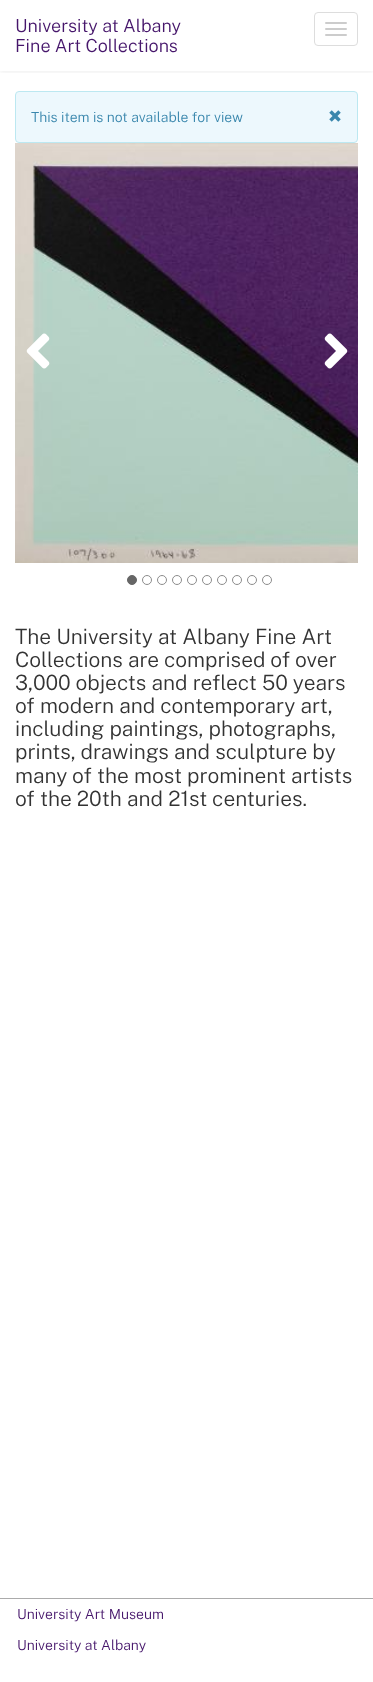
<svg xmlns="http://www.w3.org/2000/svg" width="373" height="1682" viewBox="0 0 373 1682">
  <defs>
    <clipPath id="clip1"><path d="M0 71h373v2H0z"/></clipPath>
  </defs>
  <rect width="100%" height="100%" fill="#fff"/>
  <g clip-path="url(#clip1)">
    <path d="M0 1h373v71H0z" fill="#00000012" filter="blur(2.5px)"/>
  </g>
  <rect x="314.5" y="12.5" width="43" height="33" rx="3.5" fill="none" stroke="#ddd"/>
  <rect x="325" y="22" width="22" height="2" rx="1" fill="#ccc"/>
  <rect x="325" y="28" width="22" height="2" rx="1" fill="#ccc"/>
  <rect x="325" y="34" width="22" height="2" rx="1" fill="#ccc"/>
  <rect x="15.5" y="91.5" width="342" height="51" rx="3.5" fill="#edf8fd" stroke="#bce8f1"/>
  <image x="329" y="110" width="12" height="12" href="img/1.png"/>
  <image x="15" y="143" width="343" height="420" href="img/2.png"/>
  <image x="26" y="333" width="24" height="36" href="img/3.png"/>
  <image x="324" y="333" width="24" height="36" href="img/4.png"/>
  <circle cx="132" cy="580" r="4.5" fill="#666" stroke="#666"/>
  <circle cx="147" cy="580" r="4.5" fill="none" stroke="#8c8c8c"/>
  <circle cx="162" cy="580" r="4.5" fill="none" stroke="#8c8c8c"/>
  <circle cx="177" cy="580" r="4.5" fill="none" stroke="#8c8c8c"/>
  <circle cx="192" cy="580" r="4.5" fill="none" stroke="#8c8c8c"/>
  <circle cx="207" cy="580" r="4.5" fill="none" stroke="#8c8c8c"/>
  <circle cx="222" cy="580" r="4.5" fill="none" stroke="#8c8c8c"/>
  <circle cx="237" cy="580" r="4.5" fill="none" stroke="#8c8c8c"/>
  <circle cx="252" cy="580" r="4.5" fill="none" stroke="#8c8c8c"/>
  <circle cx="267" cy="580" r="4.5" fill="none" stroke="#8c8c8c"/>
  <path d="M0 1598h373v1H0z" fill="#ababab"/>
  <g font-family="Public Sans" font-size="18" font-weight="300" fill="#46166b">
    <text x="15" y="32">University at Albany</text>
    <text x="15" y="52">Fine Art Collections</text>
  </g>
  <text x="31" y="122" font-family="Public Sans" font-size="14" font-weight="300" fill="#3a87ad">This item is not available for view</text>
  <g font-family="Public Sans" font-size="21" font-weight="300" fill="#333">
    <text x="15" y="644">The University at Albany Fine Art</text>
    <text x="15" y="667">Collections are comprised of over</text>
    <text x="15" y="690">3,000 objects and reflect 50 years</text>
    <text x="15" y="713">of modern and contemporary art,</text>
    <text x="15" y="736">including paintings, photographs,</text>
    <text x="15" y="759">prints, drawings and sculpture by</text>
    <text x="15" y="783">many of the most prominent artists</text>
    <text x="15" y="806">of the 20th and 21st centuries.</text>
  </g>
  <g font-family="Public Sans" font-size="14" font-weight="300" fill="#46166b">
    <text x="17" y="1619">University Art Museum</text>
    <text x="17" y="1650">University at Albany</text>
  </g>
</svg>
